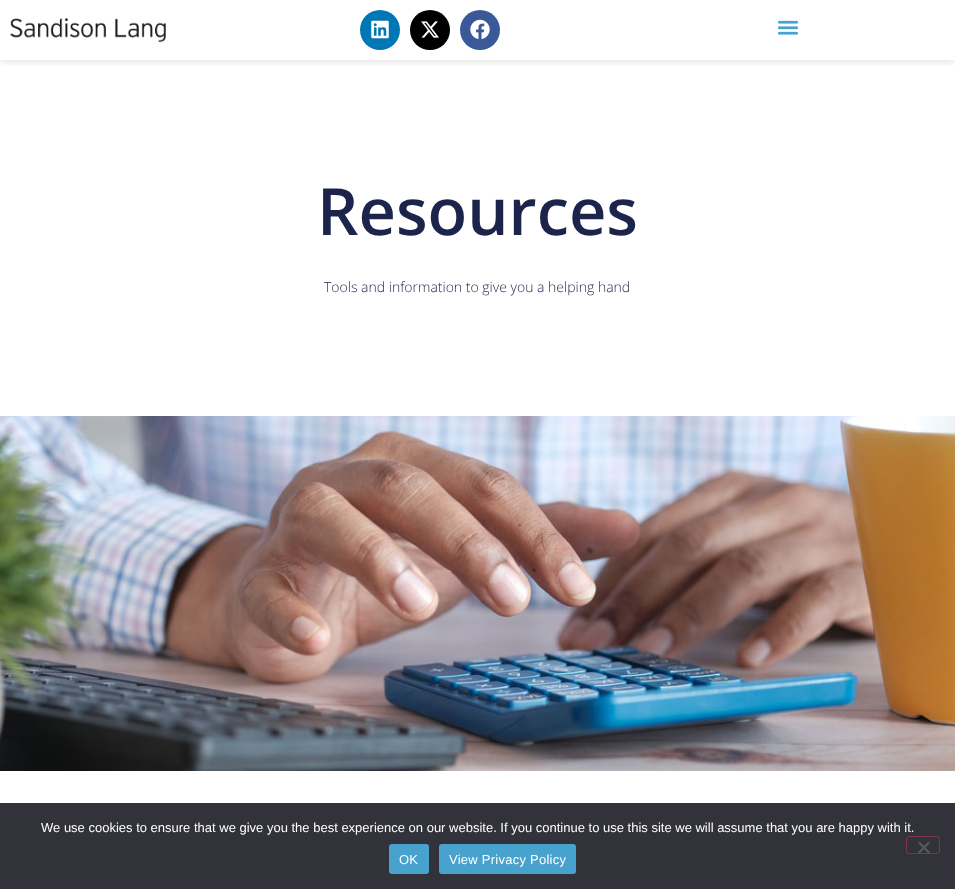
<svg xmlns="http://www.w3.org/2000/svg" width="955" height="889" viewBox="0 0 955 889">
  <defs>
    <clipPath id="clip1"><path d="M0 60h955v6H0z"/></clipPath>
  </defs>
  <rect width="100%" height="100%" fill="#fff"/>
  <g clip-path="url(#clip1)">
    <path d="M0 0h955v60H0z" fill="#0000002b" filter="blur(5px)"/>
  </g>
  <image x="10" y="18" width="156" height="25" href="img/1.png"/>
  <circle cx="380" cy="30" r="20" fill="#0077b5"/>
  <image x="371" y="20" width="18" height="19" href="img/2.png"/>
  <circle cx="430" cy="30" r="20" fill="#000"/>
  <image x="421" y="21" width="18" height="17" href="img/3.png"/>
  <circle cx="480" cy="30" r="20" fill="#3b5998"/>
  <image x="470" y="19" width="20" height="20" href="img/4.png"/>
  <image x="777" y="20" width="22" height="15" href="img/5.png"/>
  <image x="0" y="416" width="955" height="355" href="img/6.png"/>
  <path d="M0 803h955v86H0z" fill="#32323a"/>
  <rect x="906.5" y="836.5" width="33" height="17" rx="2.5" fill="none" stroke="#7f3350"/>
  <path d="M928.5 841.5L930 843L919.5 853.5L918 852Z" fill="#59595d"/>
  <path d="M918 843L919.5 841.5L930 852L928.5 853.5Z" fill="#59595d"/>
  <rect x="389" y="844" width="40" height="30" rx="3" fill="#47a3cd"/>
  <rect x="439" y="844" width="137" height="30" rx="3" fill="#47a3cd"/>
  <text x="317" y="235" font-family="Open Sans" font-size="65" font-weight="600" fill="#1c244b">Resources</text>
  <text x="324" y="292" font-family="Open Sans" font-size="14" font-weight="300" fill="#1c244b">Tools and information to give you a helping hand</text>
  <text x="41" y="832" font-family="Liberation Sans" font-size="13" fill="#fff">We use cookies to ensure that we give you the best experience on our website. If you continue to use this site we will assume that you are happy with it.</text>
  <g font-family="Liberation Sans" font-size="13" letter-spacing="0.25" fill="#fff">
    <text x="399" y="864">OK</text>
    <text x="449" y="864">View Privacy Policy</text>
  </g>
</svg>
